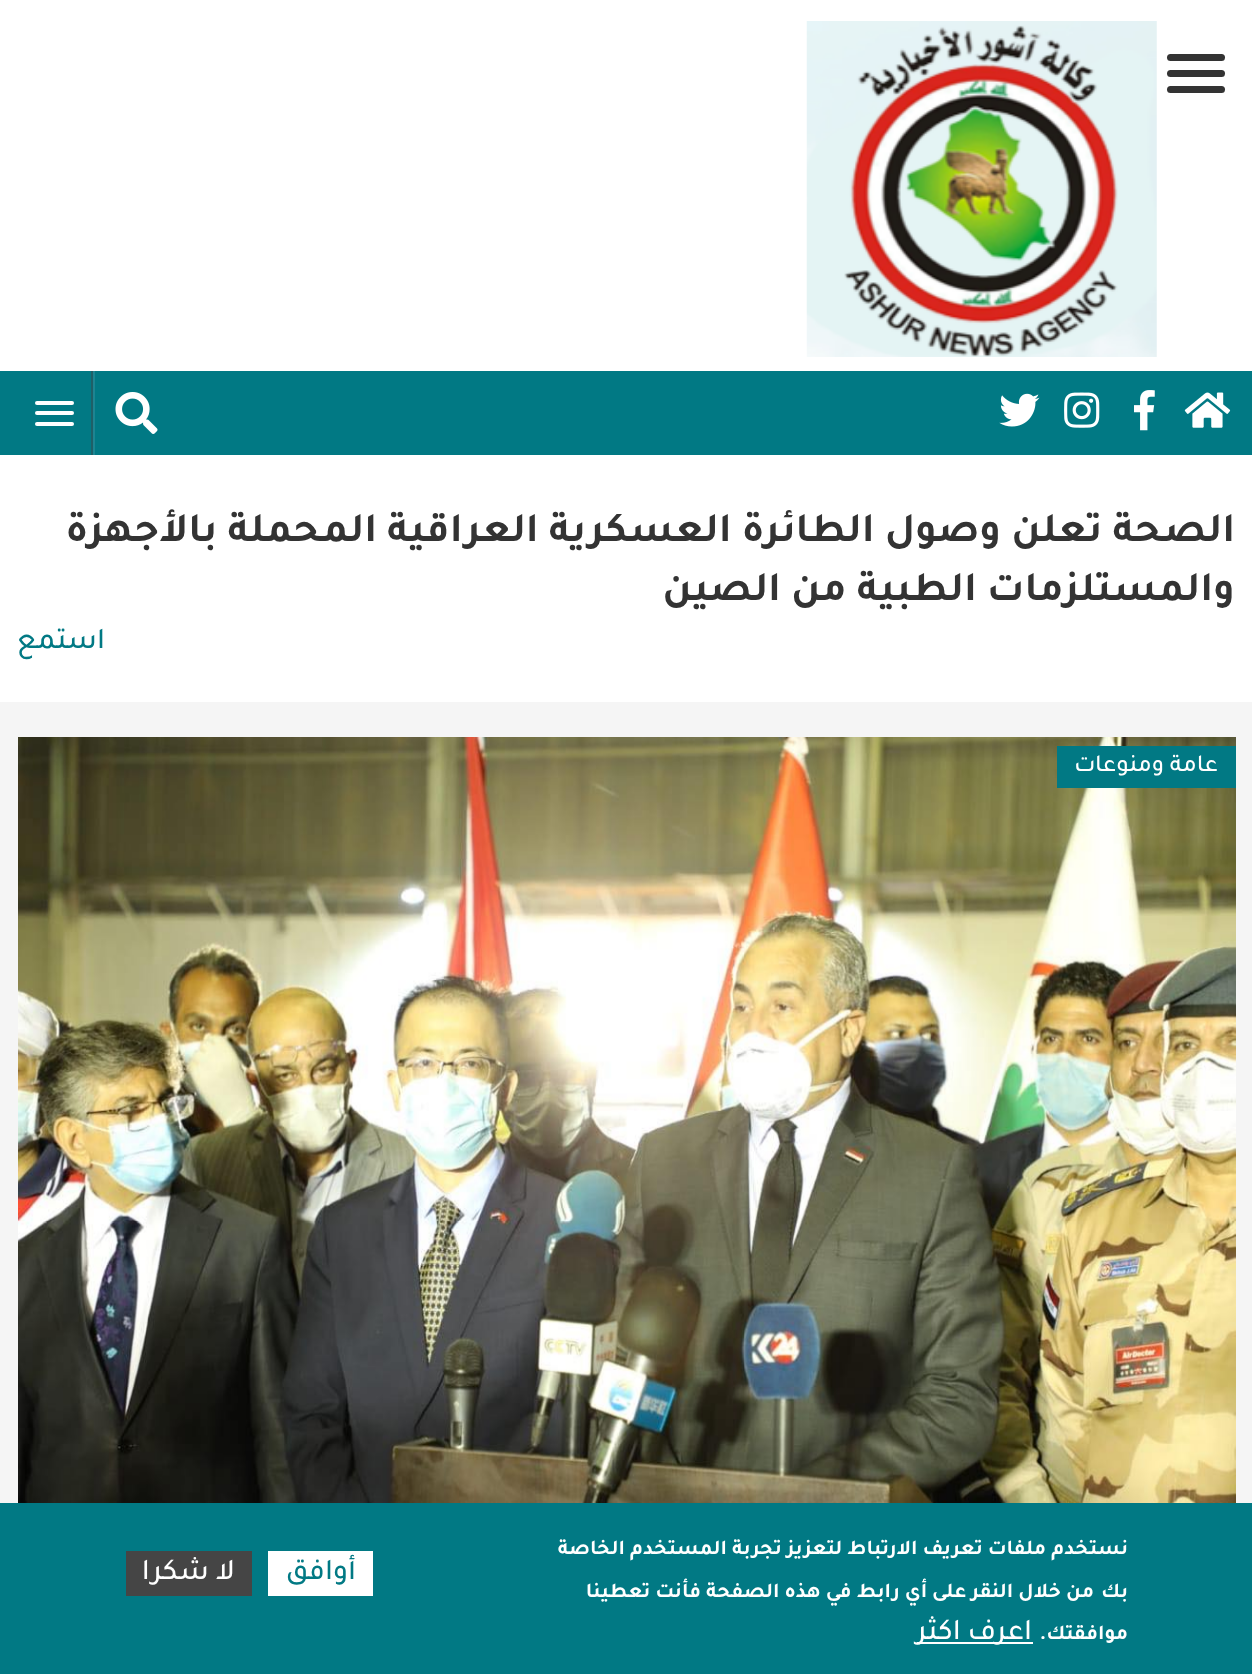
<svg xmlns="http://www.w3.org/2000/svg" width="1252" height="1674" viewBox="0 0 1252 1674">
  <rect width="100%" height="100%" fill="#fff"/>
  <rect x="1167" y="54" width="58" height="7" rx="3.5" fill="#333"/>
  <rect x="1167" y="70" width="58" height="7" rx="3.5" fill="#333"/>
  <rect x="1167" y="86" width="58" height="7" rx="3.5" fill="#333"/>
  <image x="806" y="21" width="351" height="336" href="img/1.png"/>
  <path d="M0 371h1252v84H0z" fill="#017984"/>
  <image x="1184" y="392" width="47" height="36" href="img/2.png"/>
  <image x="1134" y="390" width="21" height="41" href="img/3.png"/>
  <image x="1064" y="392" width="36" height="36" href="img/4.png"/>
  <image x="999" y="393" width="41" height="34" href="img/5.png"/>
  <path d="M93 371h2v84H93z" fill="#1d8592"/>
  <image x="115" y="392" width="43" height="42" href="img/6.png"/>
  <path d="M91 371h2v84H91z" fill="#1f5f67"/>
  <rect x="35" y="401" width="39" height="4" rx="2" fill="#fff"/>
  <rect x="35" y="411" width="39" height="4" rx="2" fill="#fff"/>
  <rect x="35" y="422" width="39" height="4" rx="2" fill="#fff"/>
  <path d="M0 702h1252v801H0z" fill="#f5f5f5"/>
  <image x="18" y="737" width="1218" height="766" href="img/7.png"/>
  <path d="M1057 746h179v42H1057z" fill="#017984"/>
  <path d="M0 1503h1252v171H0z" fill="#017984"/>
  <path d="M917 1642h116v2H917z" fill="#fff"/>
  <path d="M268 1551h105v45H268z" fill="#fff"/>
  <path d="M126 1551h126v45H126z" fill="#454545"/>
  <g font-family="Tajawal" font-size="42" font-weight="bold" direction="rtl" fill="#333">
    <text x="1235" y="541">الصحة تعلن وصول الطائرة العسكرية العراقية المحملة بالأجهزة</text>
    <text x="1235" y="600">والمستلزمات الطبية من الصين</text>
  </g>
  <text x="105" y="648" font-family="Tajawal" font-size="30" font-weight="500" direction="rtl" fill="#017984">استمع</text>
  <text x="1218" y="771" font-family="Tajawal" font-size="24.5" font-weight="500" direction="rtl" fill="#fff">عامة ومنوعات</text>
  <g font-family="Tajawal" font-size="21" font-weight="bold" direction="rtl" fill="#fff">
    <text x="1128" y="1554">نستخدم ملفات تعريف الارتباط لتعزيز تجربة المستخدم الخاصة</text>
    <text x="1128" y="1597">بك</text>
    <text x="1094" y="1597">من خلال النقر على أي رابط في هذه الصفحة فأنت تعطينا</text>
    <text x="1128" y="1639">موافقتك.</text>
  </g>
  <text x="1032" y="1639" font-family="Tajawal" font-size="30" font-weight="500" direction="rtl" fill="#fff">اعرف اكثر</text>
  <text x="356" y="1579" font-family="Tajawal" font-size="30" font-weight="500" direction="rtl" fill="#017984">أوافق</text>
  <text x="235" y="1579" font-family="Tajawal" font-size="30" font-weight="500" direction="rtl" fill="#fff">لا شكرا</text>
</svg>
